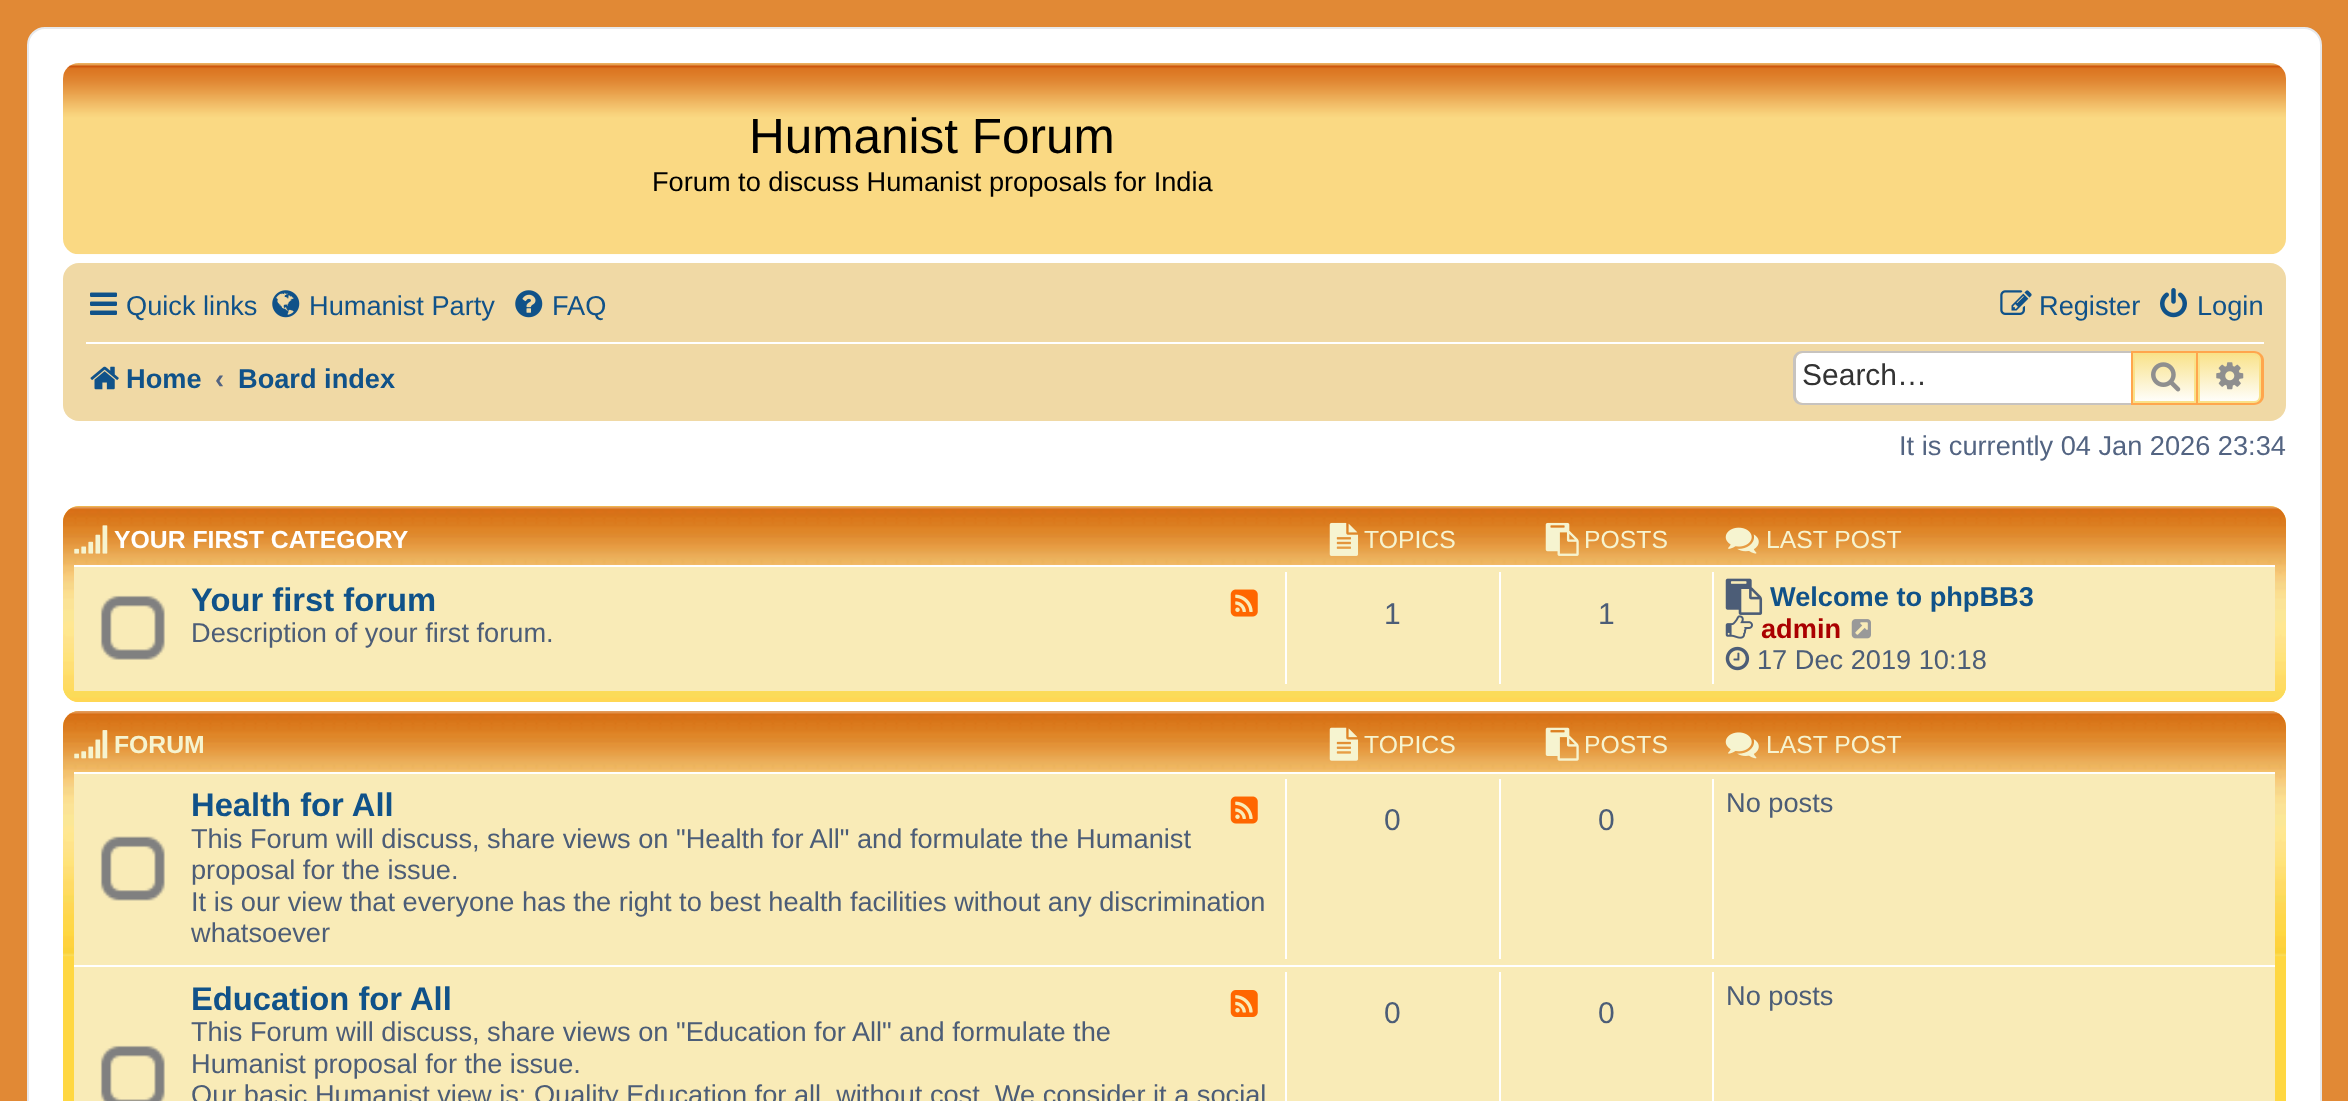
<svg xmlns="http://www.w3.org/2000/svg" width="2348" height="1101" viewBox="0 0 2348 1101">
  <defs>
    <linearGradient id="g1" gradientUnits="userSpaceOnUse" x1="2165" y1="353" x2="2165" y2="403"><stop offset="0" stop-color="#f9e289"/><stop offset="1" stop-color="#fff"/></linearGradient>
    <linearGradient id="g2" gradientUnits="userSpaceOnUse" x1="2230" y1="353" x2="2230" y2="403"><stop offset="0" stop-color="#f9e289"/><stop offset="1" stop-color="#fff"/></linearGradient>
  </defs>
  <rect width="100%" height="100%" fill="#e18935"/>
  <rect x="28" y="28" width="2293" height="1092" rx="17" fill="#fff" stroke="#e6e9ed" stroke-width="2"/>
  <image x="63" y="63" width="2223" height="192" href="img/1.png"/>
  <rect x="63" y="263" width="2223" height="158" rx="16" fill="#f0d9a5"/>
  <image x="90" y="292" width="27" height="23" href="img/2.png"/>
  <image x="272" y="290" width="28" height="28" href="img/3.png"/>
  <image x="515" y="290" width="28" height="28" href="img/4.png"/>
  <image x="2000" y="290" width="32" height="25" href="img/5.png"/>
  <image x="2160" y="288" width="27" height="30" href="img/6.png"/>
  <path d="M86 342h2178v2H86z" fill="#fff"/>
  <image x="90" y="366" width="29" height="24" href="img/7.png"/>
  <path d="M1803 353H2131V403H1803C1799 403 1796 400 1796 396V360C1796 356 1799 353 1803 353Z" fill="#fff"/>
  <path d="M1802 351H2131V405H1802C1797 405 1793 401 1793 396V360C1793 355 1797 351 1802 351ZM1802 353H2131V403H1802C1799 403 1796 400 1796 396V360C1796 356 1799 353 1802 353Z" fill="#c7c3bf" fill-rule="evenodd"/>
  <path d="M2135 355h59v46H2135z" fill="url(#g1)"/>
  <path d="M2134 354h61v48H2134z" fill="none" stroke="#f9e289" stroke-width="2"/>
  <path d="M2132 352h65v52H2132z" fill="none" stroke="#ffa64d" stroke-width="2"/>
  <image x="2151" y="362" width="30" height="30" href="img/8.png"/>
  <path d="M2199 354H2254C2257.5 354 2260 356.5 2260 360V396C2260 399.5 2257.5 402 2254 402H2199Z" fill="url(#g2)" stroke="#f9e289" stroke-width="2"/>
  <path d="M2198 351H2254C2259 351 2264 355 2264 360V396C2264 401 2259 405 2254 405H2198ZM2198 353H2254C2258 353 2261 356 2261 360V396C2261 400 2258 403 2254 403H2198Z" fill="#ffa64d" fill-rule="evenodd"/>
  <image x="2216" y="362" width="28" height="28" href="img/9.png"/>
  <rect x="63" y="506" width="2223" height="196" rx="16" fill="#ffd741"/>
  <image x="63" y="506" width="2223" height="196" href="img/10.png"/>
  <image x="74" y="525" width="34" height="29" href="img/11.png"/>
  <image x="1329" y="522" width="30" height="34" href="img/12.png"/>
  <image x="1545" y="522" width="34" height="34" href="img/13.png"/>
  <image x="1725" y="527" width="34" height="27" href="img/14.png"/>
  <path d="M74 567h2201v124H74z" fill="#f9ebb7"/>
  <path d="M74 565h2201v2H74z" fill="#fff"/>
  <image x="100" y="595" width="65" height="65" href="img/15.png"/>
  <image x="1230" y="589" width="28" height="28" href="img/16.png"/>
  <path d="M1285 572h2v112H1285z" fill="#fff"/>
  <path d="M1499 572h2v112H1499z" fill="#fff"/>
  <path d="M1712 572h2v112H1712z" fill="#fff"/>
  <image x="1725" y="578" width="38" height="37" href="img/17.png"/>
  <image x="1725" y="615" width="28" height="24" href="img/18.png"/>
  <image x="1851" y="619" width="20" height="20" href="img/19.png"/>
  <image x="1725" y="646" width="25" height="25" href="img/20.png"/>
  <rect x="63" y="711" width="2223" height="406" rx="16" fill="#ffd741"/>
  <image x="63" y="711" width="2223" height="246" href="img/21.png"/>
  <image x="74" y="730" width="34" height="29" href="img/22.png"/>
  <image x="1329" y="727" width="30" height="34" href="img/23.png"/>
  <image x="1545" y="727" width="34" height="34" href="img/24.png"/>
  <image x="1725" y="732" width="34" height="27" href="img/25.png"/>
  <path d="M74 774h2201v327H74z" fill="#f9ebb7"/>
  <path d="M74 772h2201v2H74z" fill="#fff"/>
  <image x="100" y="836" width="65" height="65" href="img/26.png"/>
  <image x="1230" y="796" width="28" height="28" href="img/16.png"/>
  <path d="M1285 779h2v180H1285z" fill="#fff"/>
  <path d="M1499 779h2v180H1499z" fill="#fff"/>
  <path d="M1712 779h2v180H1712z" fill="#fff"/>
  <path d="M74 965h2201v2H74z" fill="#fff"/>
  <image x="100" y="1045" width="65" height="56" href="img/27.png"/>
  <image x="1230" y="990" width="28" height="27" href="img/28.png"/>
  <path d="M1285 972h2v129H1285z" fill="#fff"/>
  <path d="M1499 972h2v129H1499z" fill="#fff"/>
  <path d="M1712 972h2v129H1712z" fill="#fff"/>
  <text x="749" y="153" font-family="Liberation Sans" font-size="49.5" fill="#000">Humanist Forum</text>
  <text x="652" y="191" font-family="Liberation Sans" font-size="27.2" fill="#000">Forum to discuss Humanist proposals for India</text>
  <g font-family="Liberation Sans" font-size="27.2" fill="#105289">
    <text x="126" y="315">Quick links</text>
    <text x="309" y="315">Humanist Party</text>
    <text x="552" y="315">FAQ</text>
    <text x="2039" y="315">Register</text>
    <text x="2197" y="315">Login</text>
  </g>
  <text x="126" y="388" font-family="Liberation Sans" font-size="27.2" font-weight="bold" fill="#105289">Home</text>
  <text x="215" y="388" font-family="Liberation Sans" font-size="27.2" font-weight="bold" fill="#536482">‹</text>
  <text x="238" y="388" font-family="Liberation Sans" font-size="27.2" font-weight="bold" fill="#105289">Board index</text>
  <text x="1802" y="385" font-family="Liberation Sans" font-size="30" fill="#333">Search…</text>
  <text x="1899" y="455" font-family="Liberation Sans" font-size="27.2" fill="#536482">It is currently 04 Jan 2026 23:34</text>
  <text x="114" y="548" font-family="Liberation Sans" font-size="24.75" font-weight="bold" fill="#fff">YOUR FIRST CATEGORY</text>
  <g font-family="Liberation Sans" font-size="24.75" fill="#f6f4d0">
    <text x="1364" y="548">TOPICS</text>
    <text x="1584" y="548">POSTS</text>
    <text x="1766" y="548">LAST POST</text>
  </g>
  <text x="191" y="611" font-family="Liberation Sans" font-size="32.75" font-weight="bold" fill="#105289">Your first forum</text>
  <text x="191" y="642" font-family="Liberation Sans" font-size="27.2" fill="#4c5d77">Description of your first forum.</text>
  <g font-family="Liberation Sans" font-size="30" fill="#4c5d77">
    <text x="1384" y="624">1</text>
    <text x="1598" y="624">1</text>
  </g>
  <text x="1770" y="606" font-family="Liberation Sans" font-size="27.2" font-weight="bold" fill="#105289">Welcome to phpBB3</text>
  <text x="1761" y="638" font-family="Liberation Sans" font-size="27.2" font-weight="bold" fill="#a00">admin</text>
  <text x="1757" y="669" font-family="Liberation Sans" font-size="27.2" fill="#4c5d77">17 Dec 2019 10:18</text>
  <text x="114" y="753" font-family="Liberation Sans" font-size="24.75" font-weight="bold" fill="#f6f4d0">FORUM</text>
  <g font-family="Liberation Sans" font-size="24.75" fill="#f6f4d0">
    <text x="1364" y="753">TOPICS</text>
    <text x="1584" y="753">POSTS</text>
    <text x="1766" y="753">LAST POST</text>
  </g>
  <text x="191" y="816" font-family="Liberation Sans" font-size="32.75" font-weight="bold" fill="#105289">Health for All</text>
  <g font-family="Liberation Sans" font-size="27.2" fill="#4c5d77">
    <text x="191" y="848">This Forum will discuss, share views on "Health for All" and formulate the Humanist</text>
    <text x="191" y="879">proposal for the issue.</text>
    <text x="191" y="911">It is our view that everyone has the right to best health facilities without any discrimination</text>
    <text x="191" y="942">whatsoever</text>
  </g>
  <g font-family="Liberation Sans" font-size="30" fill="#4c5d77">
    <text x="1384" y="830">0</text>
    <text x="1598" y="830">0</text>
  </g>
  <text x="1726" y="812" font-family="Liberation Sans" font-size="27.2" fill="#4c5d77">No posts</text>
  <text x="191" y="1010" font-family="Liberation Sans" font-size="32.75" font-weight="bold" fill="#105289">Education for All</text>
  <g font-family="Liberation Sans" font-size="27.2" fill="#4c5d77">
    <text x="191" y="1041">This Forum will discuss, share views on "Education for All" and formulate the</text>
    <text x="191" y="1073">Humanist proposal for the issue.</text>
    <text x="191" y="1104">Our basic Humanist view is: Quality Education for all, without cost. We consider it a social</text>
  </g>
  <g font-family="Liberation Sans" font-size="30" fill="#4c5d77">
    <text x="1384" y="1023">0</text>
    <text x="1598" y="1023">0</text>
  </g>
  <text x="1726" y="1005" font-family="Liberation Sans" font-size="27.2" fill="#4c5d77">No posts</text>
</svg>
